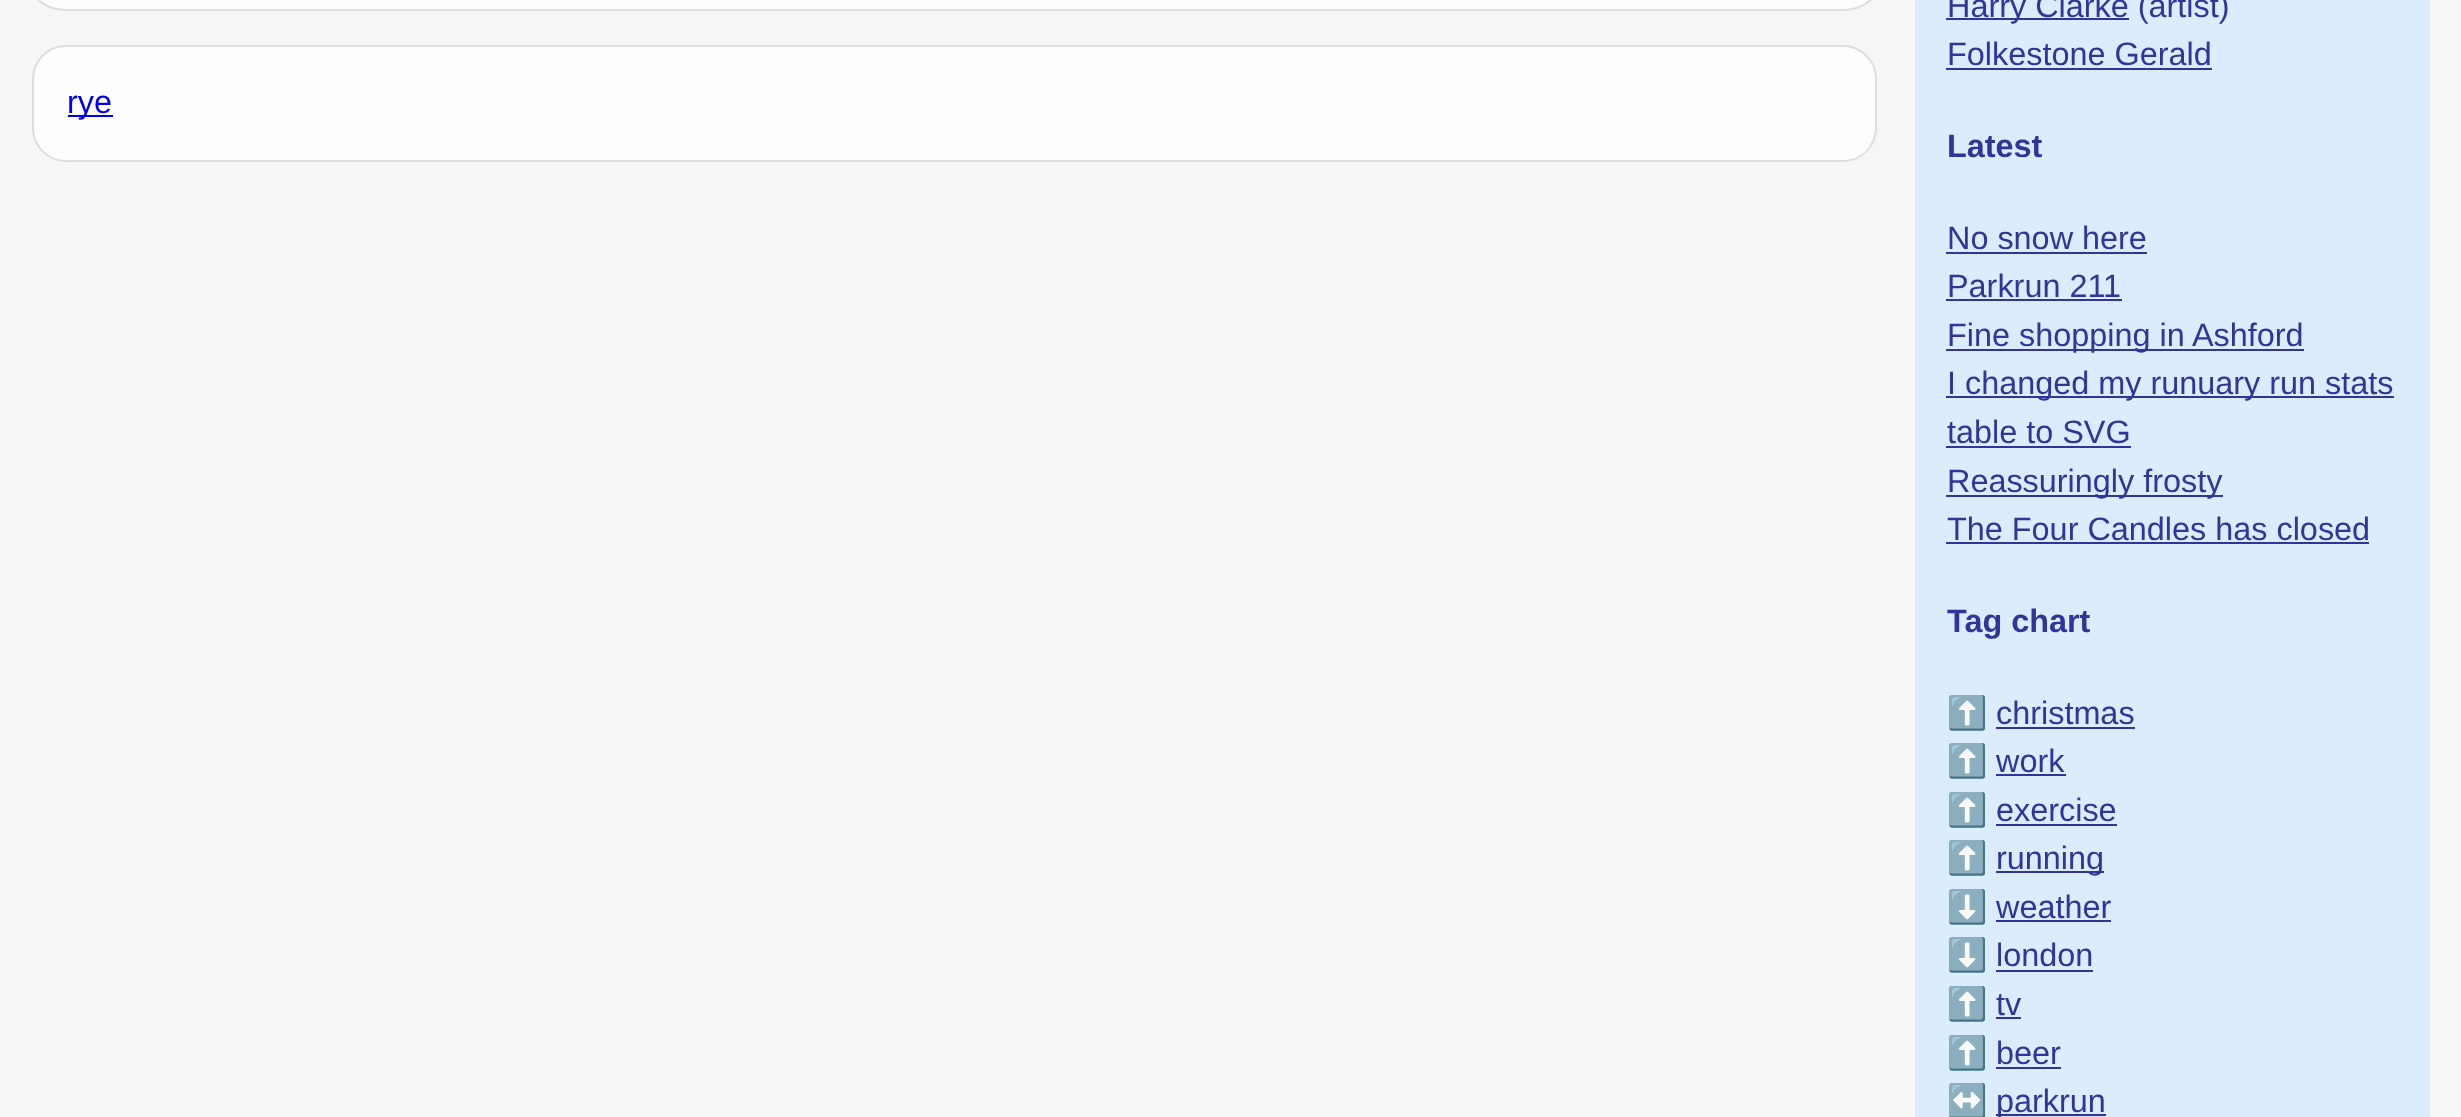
<svg xmlns="http://www.w3.org/2000/svg" width="2461" height="1117" viewBox="0 0 2461 1117">
  <rect width="100%" height="100%" fill="#f6f6f6"/>
  <rect x="33" y="-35" width="1843" height="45" rx="33" fill="#fdfdfd" stroke="#ddd" stroke-width="2"/>
  <rect x="33" y="46" width="1843" height="115" rx="33" fill="#fdfdfd" stroke="#ddd" stroke-width="2"/>
  <path d="M68 115h45v2H68z" fill="#00e"/>
  <path d="M1915 0h515v1117H1915z" fill="#dbedfc"/>
  <path d="M1946 18h183v2H1946z" fill="#339"/>
  <path d="M1946 68h266v2H1946z" fill="#339"/>
  <path d="M1946 252h201v2H1946z" fill="#339"/>
  <path d="M1946 299h176v2H1946z" fill="#339"/>
  <path d="M1946 349h358v2H1946z" fill="#339"/>
  <path d="M1946 396h448v2H1946z" fill="#339"/>
  <path d="M1946 446h185v2H1946z" fill="#339"/>
  <path d="M1946 495h277v2H1946z" fill="#339"/>
  <path d="M1946 542h423v2H1946z" fill="#339"/>
  <path d="M1996 727h139v2H1996z" fill="#339"/>
  <path d="M1996 774h70v2H1996z" fill="#339"/>
  <path d="M1996 824h121v2H1996z" fill="#339"/>
  <path d="M1996 871h108v2H1996z" fill="#339"/>
  <path d="M1996 920h115v2H1996z" fill="#339"/>
  <path d="M1996 970h97v2H1996z" fill="#339"/>
  <path d="M1996 1017h25v2H1996z" fill="#339"/>
  <path d="M1996 1067h65v2H1996z" fill="#339"/>
  <path d="M1996 1114h110v2H1996z" fill="#339"/>
  <text x="67" y="113" font-family="Liberation Sans" font-size="32.4" fill="#00e">rye</text>
  <g font-family="Liberation Sans" font-size="32.4" fill="#339">
    <text x="1947" y="17">Harry Clarke (artist)</text>
    <text x="1947" y="65">Folkestone Gerald</text>
  </g>
  <text x="1947" y="157" font-family="Liberation Sans" font-size="32.4" font-weight="bold" fill="#339">Latest</text>
  <g font-family="Liberation Sans" font-size="32.4" fill="#339">
    <text x="1947" y="249">No snow here</text>
    <text x="1947" y="297">Parkrun 211</text>
    <text x="1947" y="346">Fine shopping in Ashford</text>
    <text x="1947" y="394">I changed my runuary run stats</text>
    <text x="1947" y="443">table to SVG</text>
    <text x="1947" y="492">Reassuringly frosty</text>
    <text x="1947" y="540">The Four Candles has closed</text>
  </g>
  <text x="1947" y="632" font-family="Liberation Sans" font-size="32.4" font-weight="bold" fill="#339">Tag chart</text>
  <text x="1947" y="724" font-family="Noto Color Emoji" font-size="32.4" fill="#339">⬆️</text>
  <text x="1996" y="724" font-family="Liberation Sans" font-size="32.4" fill="#339">christmas</text>
  <text x="1947" y="772" font-family="Noto Color Emoji" font-size="32.4" fill="#339">⬆️</text>
  <text x="1996" y="772" font-family="Liberation Sans" font-size="32.4" fill="#339">work</text>
  <text x="1947" y="821" font-family="Noto Color Emoji" font-size="32.4" fill="#339">⬆️</text>
  <text x="1996" y="821" font-family="Liberation Sans" font-size="32.4" fill="#339">exercise</text>
  <text x="1947" y="869" font-family="Noto Color Emoji" font-size="32.4" fill="#339">⬆️</text>
  <text x="1996" y="869" font-family="Liberation Sans" font-size="32.4" fill="#339">running</text>
  <text x="1947" y="918" font-family="Noto Color Emoji" font-size="32.4" fill="#339">⬇️</text>
  <text x="1996" y="918" font-family="Liberation Sans" font-size="32.4" fill="#339">weather</text>
  <text x="1947" y="966" font-family="Noto Color Emoji" font-size="32.4" fill="#339">⬇️</text>
  <text x="1996" y="966" font-family="Liberation Sans" font-size="32.4" fill="#339">london</text>
  <text x="1947" y="1015" font-family="Noto Color Emoji" font-size="32.4" fill="#339">⬆️</text>
  <text x="1996" y="1015" font-family="Liberation Sans" font-size="32.4" fill="#339">tv</text>
  <text x="1947" y="1064" font-family="Noto Color Emoji" font-size="32.4" fill="#339">⬆️</text>
  <text x="1996" y="1064" font-family="Liberation Sans" font-size="32.4" fill="#339">beer</text>
  <text x="1947" y="1112" font-family="Noto Color Emoji" font-size="32.4" fill="#339">↔️</text>
  <text x="1996" y="1112" font-family="Liberation Sans" font-size="32.4" fill="#339">parkrun</text>
</svg>
